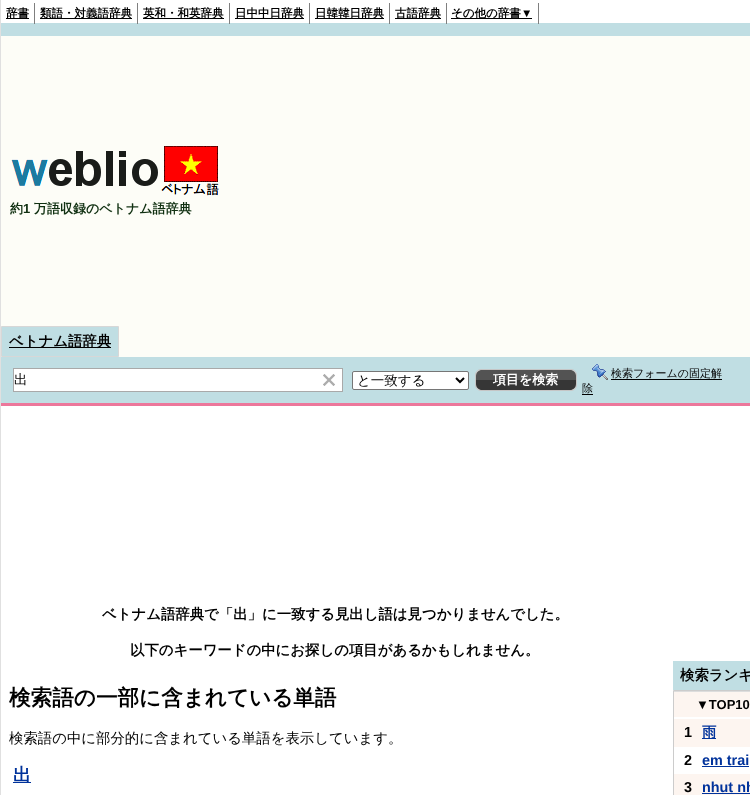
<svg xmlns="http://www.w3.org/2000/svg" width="750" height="795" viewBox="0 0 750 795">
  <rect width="100%" height="100%" fill="#fff"/>
  <path d="M0 0h1v795H0z" fill="#e0e0e0"/>
  <path d="M1 23h749v13H1z" fill="#c0dee3"/>
  <path d="M34 3h1v21H34z" fill="#7f7f7f"/>
  <path d="M6 18h23v1H6z" fill="#000"/>
  <path d="M137 3h1v21H137z" fill="#7f7f7f"/>
  <path d="M40 18h92v1H40z" fill="#000"/>
  <path d="M229 3h1v21H229z" fill="#7f7f7f"/>
  <path d="M143 18h81v1H143z" fill="#000"/>
  <path d="M309 3h1v21H309z" fill="#7f7f7f"/>
  <path d="M235 18h69v1H235z" fill="#000"/>
  <path d="M389 3h1v21H389z" fill="#7f7f7f"/>
  <path d="M315 18h69v1H315z" fill="#000"/>
  <path d="M446 3h1v21H446z" fill="#7f7f7f"/>
  <path d="M395 18h46v1H395z" fill="#000"/>
  <path d="M538 3h1v21H538z" fill="#7f7f7f"/>
  <path d="M451 18h81v1H451z" fill="#000"/>
  <path d="M1 36h749v290H1z" fill="#fdfdf7"/>
  <image x="11" y="146" width="208" height="50" href="img/1.png"/>
  <path d="M119 326h631v31H119z" fill="#fdfdf7"/>
  <path d="M1.5 326.5h117v30H1.5z" fill="#c0dee3" stroke="#d7d7d7"/>
  <path d="M9 347h102v1H9z" fill="#000"/>
  <path d="M1 357h749v46H1z" fill="#c0dee3"/>
  <path d="M1 403h749v3H1z" fill="#ec779b"/>
  <path d="M14 369h328v22H14z" fill="#fff"/>
  <path d="M13 368h330v1H13z" fill="#a9a9a9"/>
  <path d="M342 368h1v24H342z" fill="#a9a9a9"/>
  <path d="M13 391h330v1H13z" fill="#a9a9a9"/>
  <path d="M13 368h1v24H13z" fill="#a9a9a9"/>
  <image x="323" y="374" width="12" height="12" href="img/2.png"/>
  <rect x="352.5" y="371.5" width="116" height="18" rx="1.5" fill="#fff" stroke="#767676"/>
  <path d="M456 378L460 382L464 378" fill="none" stroke="#000" stroke-width="2"/>
  <rect x="475.5" y="369.5" width="101" height="21" rx="5.5" fill="#e8e8e8" stroke="#c5c5c5"/>
  <path d="M482 370H570C573.5 370 576 372.5 576 376V380H476V376C476 372.5 478.5 370 482 370Z" fill="#535353"/>
  <path d="M476 380H576V384C576 387.5 573.5 390 570 390H482C478.5 390 476 387.5 476 384Z" fill="#363636"/>
  <image x="592" y="364" width="16" height="16" href="img/3.png"/>
  <path d="M611 379h111v1H611z" fill="#000"/>
  <path d="M582 394h11v1H582z" fill="#000"/>
  <path d="M13 782h18v1H13z" fill="#00329b"/>
  <path d="M673 661h77v29H673z" fill="#c0dee3"/>
  <path d="M673.5 690.5h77v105H673.5z" fill="none" stroke="#ccc"/>
  <path d="M674 692h76v25H674z" fill="#fdf5f0"/>
  <path d="M674 691h76v1H674z" fill="#ddd"/>
  <path d="M674 719h76v28H674z" fill="#fdf5f0"/>
  <path d="M702 738h14v1H702z" fill="#00329b"/>
  <path d="M702 766h47v1H702z" fill="#00329b"/>
  <path d="M674 774h76v21H674z" fill="#fdf5f0"/>
  <path d="M702 793h48v1H702z" fill="#00329b"/>
  <g font-family="WenQuanYi Zen Hei" font-size="11.5" font-weight="bold" fill="#000">
    <text x="6" y="17">辞書</text>
    <text x="40" y="17">類語・対義語辞典</text>
    <text x="143" y="17">英和・和英辞典</text>
    <text x="235" y="17">日中中日辞典</text>
    <text x="315" y="17">日韓韓日辞典</text>
    <text x="395" y="17">古語辞典</text>
    <text x="451" y="17">その他の辞書</text>
  </g>
  <text x="521" y="17" font-family="Liberation Sans" font-size="11.5" font-weight="bold" fill="#000">▼</text>
  <text x="10" y="213" font-family="WenQuanYi Zen Hei" font-size="13" font-weight="bold" fill="#103011">約</text>
  <text x="23" y="213" font-family="Liberation Sans" font-size="13" font-weight="bold" fill="#103011">1</text>
  <text x="34" y="213" font-family="WenQuanYi Zen Hei" font-size="13" font-weight="bold" fill="#103011">万語収録のベトナム語辞典</text>
  <text x="9" y="346" font-family="WenQuanYi Zen Hei" font-size="14.4" font-weight="bold" fill="#000">ベトナム語辞典</text>
  <g font-family="WenQuanYi Zen Hei" font-size="13.5" font-weight="500" fill="#000">
    <text x="14" y="384">出</text>
    <text x="357" y="385">と一致する</text>
  </g>
  <text x="493" y="384" font-family="WenQuanYi Zen Hei" font-size="13" font-weight="bold" fill="#fff">項目を検索</text>
  <g font-family="WenQuanYi Zen Hei" font-size="11" font-weight="500" fill="#000">
    <text x="611" y="377">検索フォームの固定解</text>
    <text x="582" y="392">除</text>
  </g>
  <g font-family="WenQuanYi Zen Hei" font-size="14.4" font-weight="bold" fill="#000">
    <text x="102" y="619">ベトナム語辞典で「出」に一致する見出し語は見つかりませんでした。</text>
    <text x="130" y="655">以下のキーワードの中にお探しの項目があるかもしれません。</text>
  </g>
  <text x="9" y="705" font-family="WenQuanYi Zen Hei" font-size="21.6" font-weight="bold" fill="#000">検索語の一部に含まれている単語</text>
  <text x="9" y="743" font-family="WenQuanYi Zen Hei" font-size="14.4" font-weight="500" fill="#000">検索語の中に部分的に含まれている単語を表示しています。</text>
  <text x="13" y="781" font-family="WenQuanYi Zen Hei" font-size="18" font-weight="bold" fill="#00329b">出</text>
  <text x="680" y="680" font-family="WenQuanYi Zen Hei" font-size="14.4" font-weight="bold" fill="#000">検索ランキ</text>
  <text x="696" y="709" font-family="Liberation Sans" font-size="13" font-weight="bold" fill="#000">▼TOP10</text>
  <text x="684" y="737" font-family="Liberation Sans" font-size="14.4" font-weight="bold" fill="#000">1</text>
  <text x="702" y="737" font-family="WenQuanYi Zen Hei" font-size="14.4" font-weight="bold" fill="#00329b">雨</text>
  <text x="684" y="765" font-family="Liberation Sans" font-size="14.4" font-weight="bold" fill="#000">2</text>
  <text x="702" y="765" font-family="Liberation Sans" font-size="14.4" font-weight="bold" fill="#00329b">em trai</text>
  <text x="684" y="792" font-family="Liberation Sans" font-size="14.4" font-weight="bold" fill="#000">3</text>
  <text x="702" y="792" font-family="Liberation Sans" font-size="14.4" font-weight="bold" fill="#00329b">nhut nh</text>
</svg>
